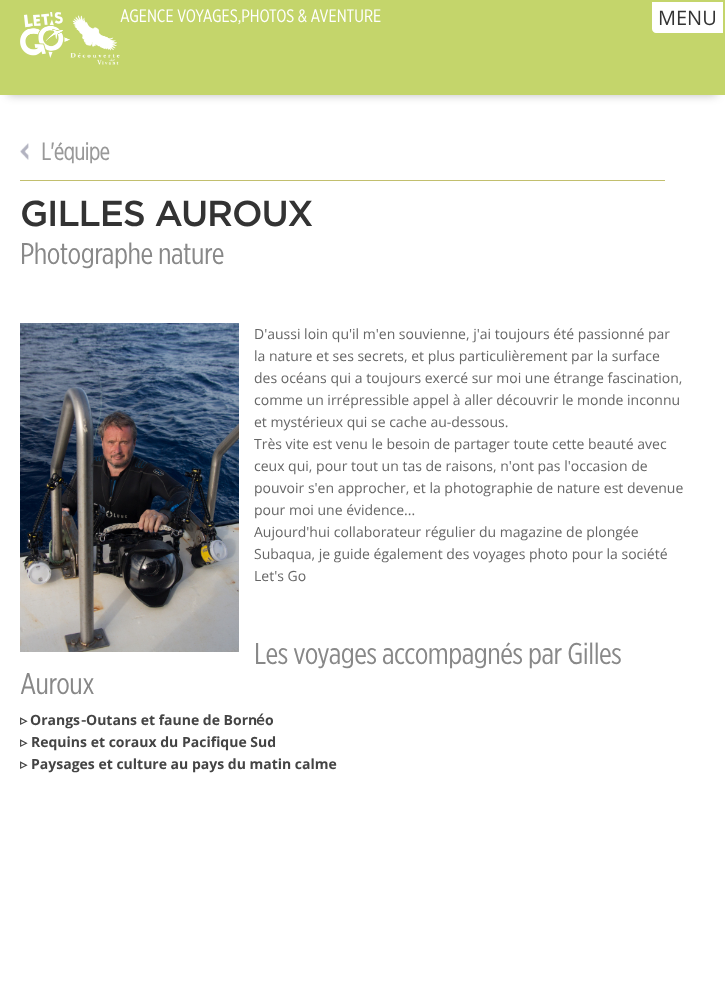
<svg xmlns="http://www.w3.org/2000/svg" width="725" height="995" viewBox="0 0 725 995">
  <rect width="100%" height="100%" fill="#fff"/>
  <path d="M8 16h709v79H8z" fill="#00000042" filter="blur(5px)"/>
  <path d="M0 0h725v95H0z" fill="#c4d56b"/>
  <image x="20" y="12" width="50" height="46" href="img/1.png"/>
  <image x="70" y="15" width="50" height="50" href="img/2.png"/>
  <path d="M652 2H723V33H656C654 33 652 31 652 29Z" fill="#fff"/>
  <image x="20" y="143" width="9" height="17" href="img/3.png"/>
  <path d="M20 180h645v1H20z" fill="#c2bf6e"/>
  <image x="20" y="323" width="219" height="329" href="img/4.png"/>
  <text x="120" y="22" font-family="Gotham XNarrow" font-size="18" fill="#fff">AGENCE VOYAGES,PHOTOS &amp; AVENTURE</text>
  <text x="658" y="25" font-family="Open Sans" font-size="20" fill="#333">MENU</text>
  <text x="41" y="160" font-family="Gotham XNarrow" font-size="24" font-weight="bold" letter-spacing="-0.25" fill="#999">L'équipe</text>
  <text x="20" y="226" font-family="Gotham" font-size="36" font-weight="500" letter-spacing="-1.1" fill="#333">GILLES AUROUX</text>
  <text x="20" y="264" font-family="Gotham XNarrow" font-size="30" letter-spacing="-0.45" fill="#888">Photographe nature</text>
  <g font-family="Open Sans" font-size="14" fill="#666">
    <text x="254" y="339">D'aussi loin qu'il m'en souvienne, j'ai toujours été passionné par</text>
    <text x="254" y="361">la nature et ses secrets, et plus particulièrement par la surface</text>
    <text x="254" y="383">des océans qui a toujours exercé sur moi une étrange fascination,</text>
    <text x="254" y="405">comme un irrépressible appel à aller découvrir le monde inconnu</text>
    <text x="254" y="427">et mystérieux qui se cache au-dessous.</text>
    <text x="254" y="449">Très vite est venu le besoin de partager toute cette beauté avec</text>
    <text x="254" y="471">ceux qui, pour tout un tas de raisons, n'ont pas l'occasion de</text>
    <text x="254" y="493">pouvoir s'en approcher, et la photographie de nature est devenue</text>
    <text x="254" y="515">pour moi une évidence...</text>
    <text x="254" y="537">Aujourd'hui collaborateur régulier du magazine de plongée</text>
    <text x="254" y="559">Subaqua, je guide également des voyages photo pour la société</text>
    <text x="254" y="581">Let's Go</text>
  </g>
  <g font-family="Gotham XNarrow" font-size="30" letter-spacing="-0.45" fill="#888">
    <text x="254" y="664">Les voyages accompagnés par Gilles</text>
    <text x="20" y="694">Auroux</text>
  </g>
  <text x="20" y="725" font-family="DejaVu Sans" font-size="14" font-weight="bold" fill="#444">▹</text>
  <text x="30" y="725" font-family="Open Sans" font-size="14" font-weight="bold" fill="#444">Orangs</text>
  <text x="81" y="725" font-family="DejaVu Sans" font-size="14" font-weight="bold" fill="#444">-</text>
  <text x="86" y="725" font-family="Open Sans" font-size="14" font-weight="bold" fill="#444">Outans et faune de Born</text>
  <text x="256" y="725" font-family="DejaVu Sans" font-size="14" font-weight="bold" fill="#444">é</text>
  <text x="265" y="725" font-family="Open Sans" font-size="14" font-weight="bold" fill="#444">o</text>
  <text x="20" y="747" font-family="DejaVu Sans" font-size="14" font-weight="bold" fill="#444">▹</text>
  <text x="31" y="747" font-family="Open Sans" font-size="14" font-weight="bold" fill="#444">Requins et coraux du Pacifique Sud</text>
  <text x="20" y="769" font-family="DejaVu Sans" font-size="14" font-weight="bold" fill="#444">▹</text>
  <text x="31" y="769" font-family="Open Sans" font-size="14" font-weight="bold" fill="#444">Paysages et culture au pays du matin calme</text>
</svg>
